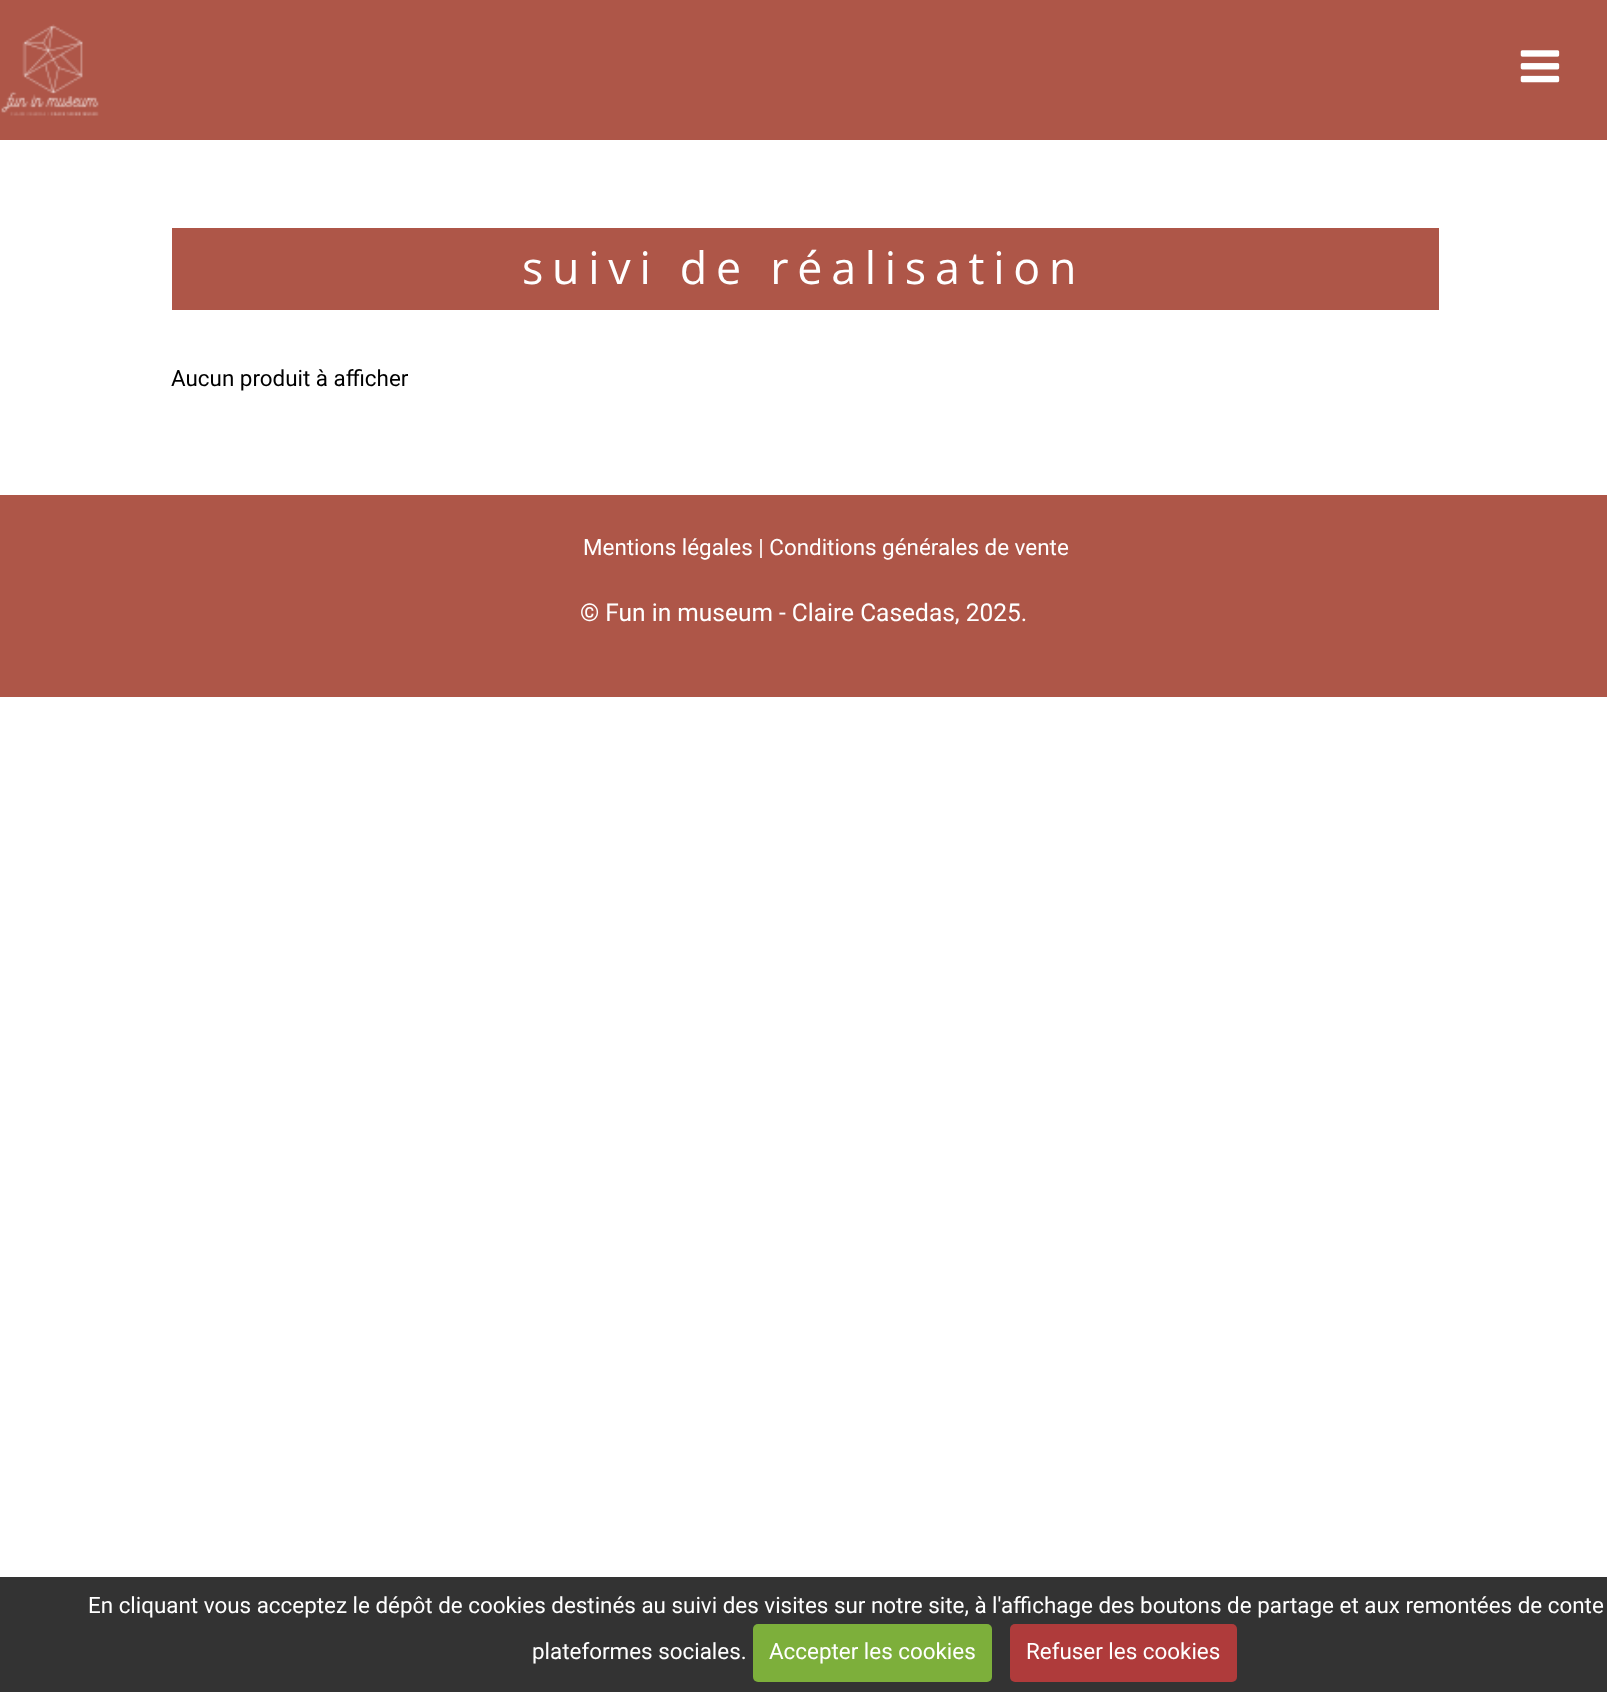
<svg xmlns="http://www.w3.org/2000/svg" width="1607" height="1692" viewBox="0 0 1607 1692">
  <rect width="100%" height="100%" fill="#fff"/>
  <path d="M0 0h1607v140H0z" fill="#ae5648"/>
  <image x="1" y="24" width="98" height="92" href="img/1.png"/>
  <image x="1520" y="50" width="40" height="33" href="img/2.png"/>
  <path d="M172 228h1267v82H172z" fill="#ae5648"/>
  <path d="M0 495h1607v202H0z" fill="#ae5648"/>
  <path d="M0 1577h1607v115H0z" fill="#333"/>
  <rect x="753" y="1624" width="239" height="58" rx="5" fill="#7daf3b"/>
  <rect x="1010" y="1624" width="227" height="58" rx="5" fill="#af3b3b"/>
  <text x="522" y="284" font-family="Open Sans" font-size="44.75" letter-spacing="8.75" fill="#fff">suivi de réalisation</text>
  <text x="171" y="386" font-family="Roboto" font-size="22.4" fill="#000">Aucun produit à afficher</text>
  <text x="583" y="555" font-family="Roboto" font-size="22.4" fill="#fff">Mentions légales | Conditions générales de vente</text>
  <text x="580" y="621" font-family="Roboto" font-size="24.5" fill="#fff">© Fun in museum - Claire Casedas, 2025.</text>
  <g font-family="Roboto" font-size="22.4" fill="#fff">
    <text x="88" y="1613">En cliquant vous acceptez le dépôt de cookies destinés au suivi des visites sur notre site, à l'affichage des boutons de partage et aux remontées de conte</text>
    <text x="532" y="1659">plateformes sociales.</text>
    <text x="769" y="1659">Accepter les cookies</text>
    <text x="1026" y="1659">Refuser les cookies</text>
  </g>
</svg>
